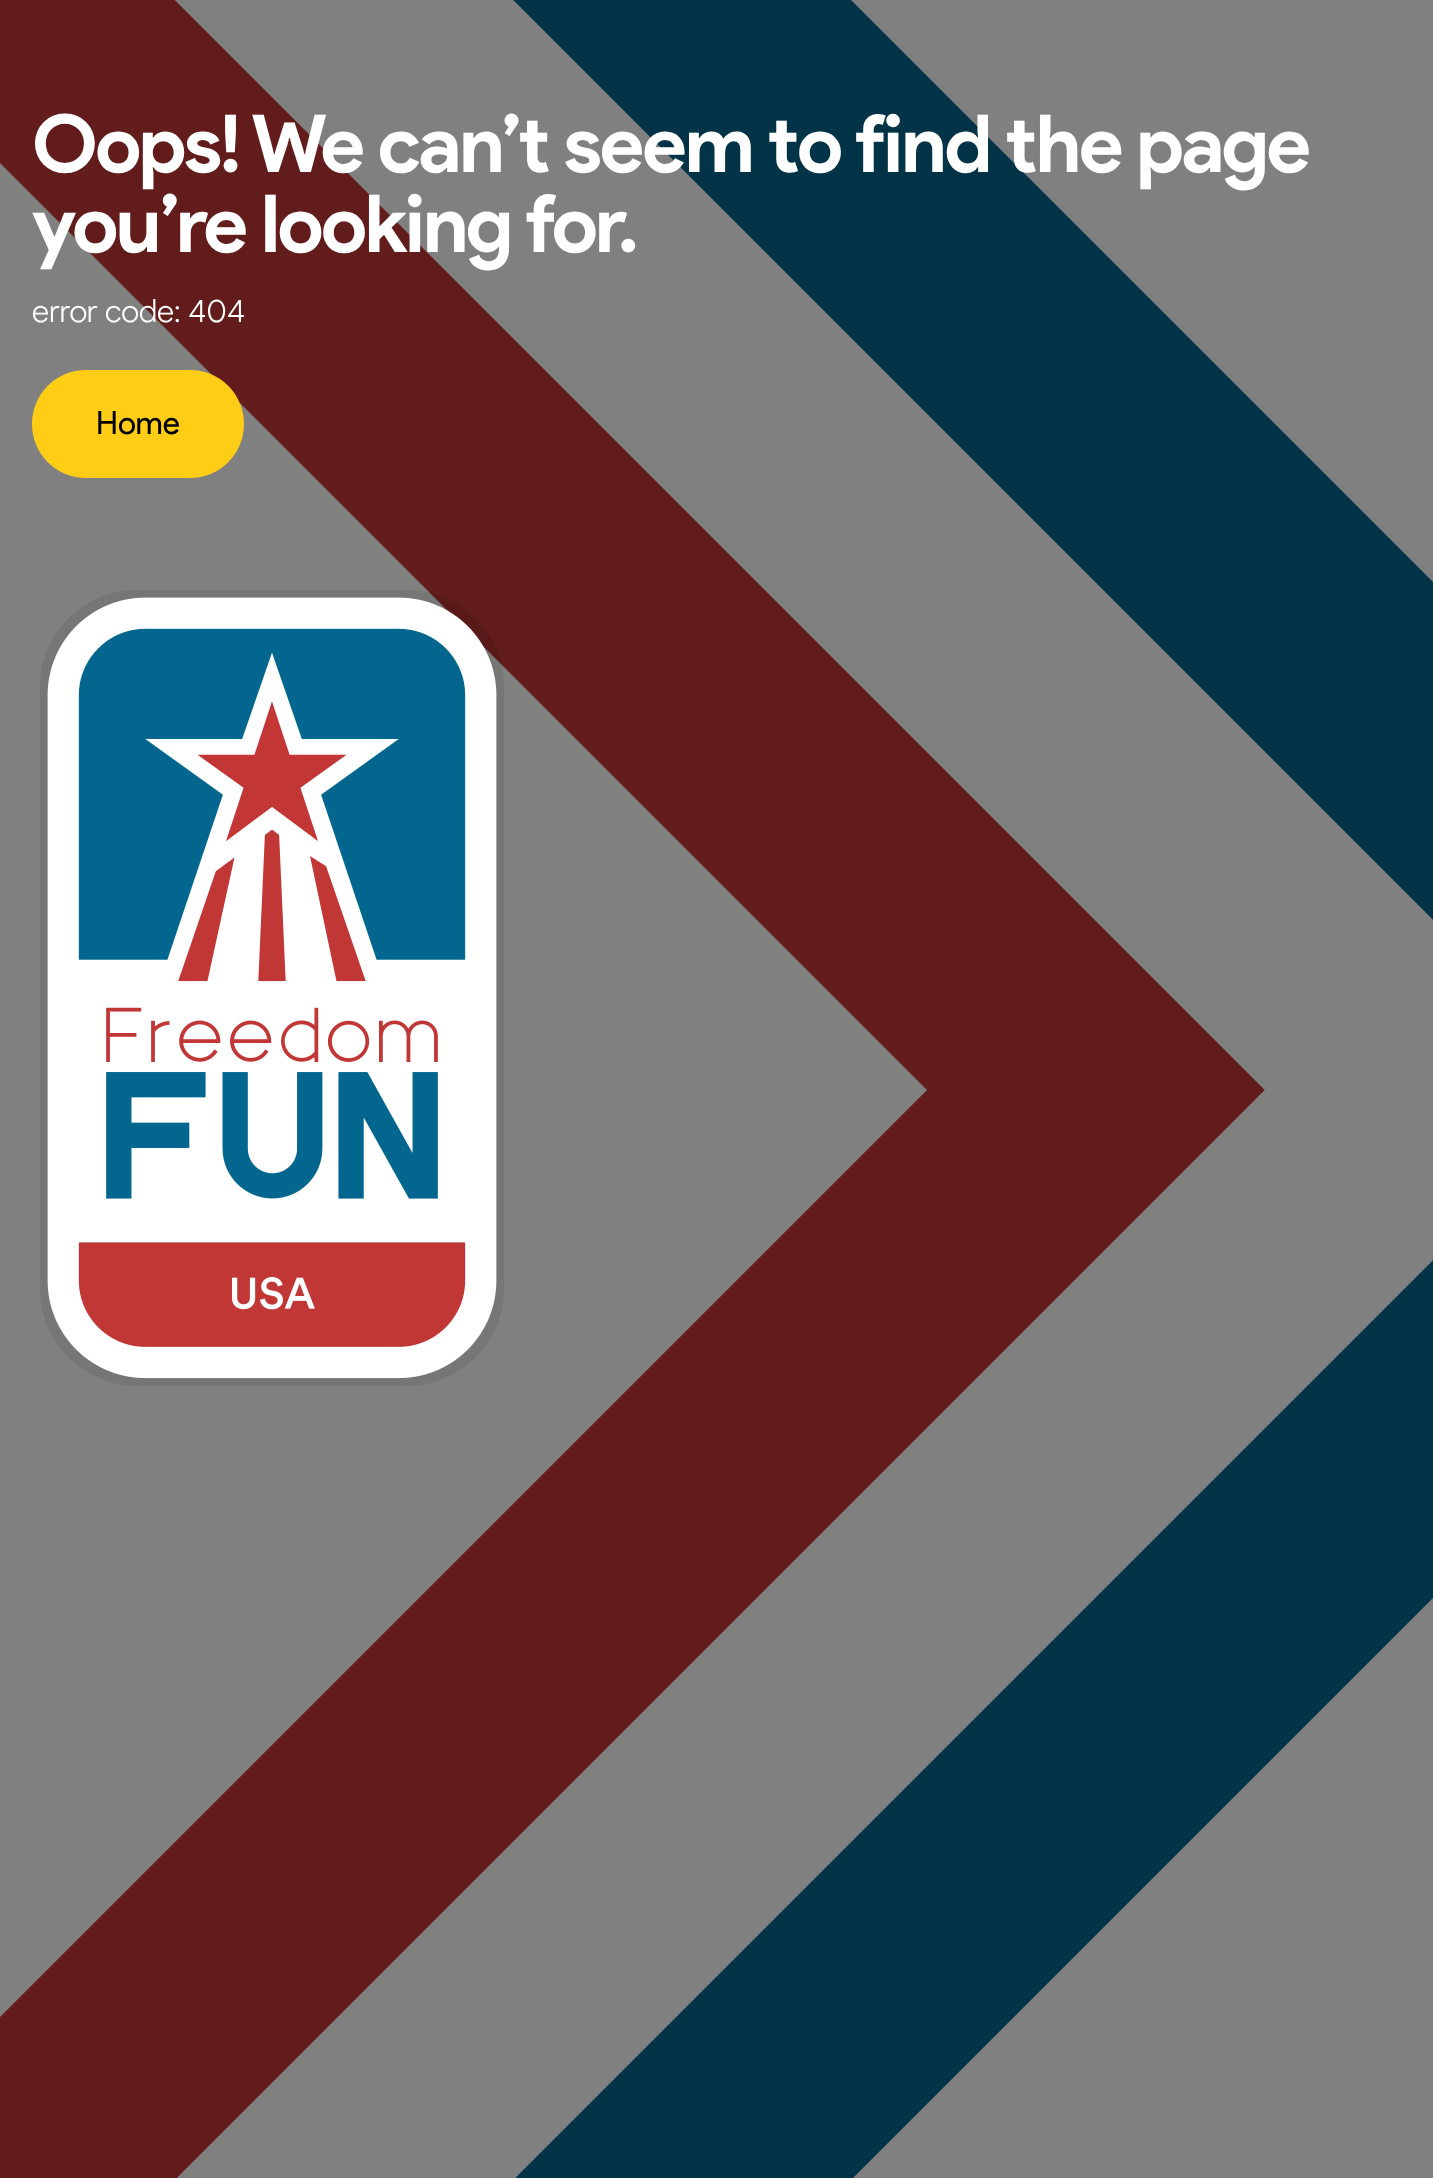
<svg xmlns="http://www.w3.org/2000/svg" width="1433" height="2178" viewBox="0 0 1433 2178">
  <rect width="100%" height="100%" fill="#808080"/>
  <path d="M1265 1090L0-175V163L927 1090Z" fill="#611c1b"/>
  <path d="M169-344L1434 921V583L507-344Z" fill="#023347"/>
  <path d="M0-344V-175L1265 1090H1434V921L169-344Z" fill="#808080"/>
  <path d="M169 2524L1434 1259V1597L507 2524Z" fill="#023347"/>
  <path d="M1265 1090L0 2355V2017L927 1090Z" fill="#611c1b"/>
  <path d="M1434 1090V1259L169 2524H0V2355L1265 1090Z" fill="#808080"/>
  <rect x="32" y="370" width="212" height="108" rx="54" fill="#ffcd16"/>
  <image x="40" y="590" width="464" height="796" href="img/1.png"/>
  <g font-family="Product Sans" font-size="80" font-weight="bold" letter-spacing="-2.4" fill="#fff">
    <text x="32" y="172">Oops! We can’t seem to find the page</text>
    <text x="32" y="252">you’re looking for.</text>
  </g>
  <text x="32" y="322" font-family="Product Sans" font-size="32" font-weight="300" fill="#fff">error code: 404</text>
  <text x="96" y="434" font-family="Product Sans" font-size="32" fill="#000">Home</text>
</svg>
